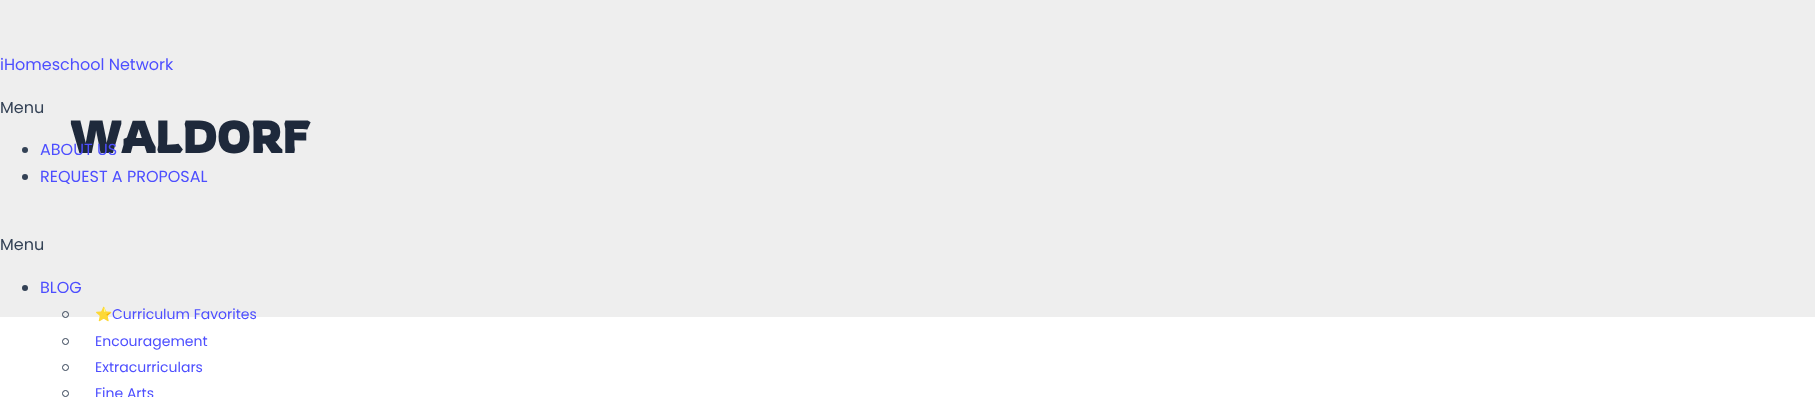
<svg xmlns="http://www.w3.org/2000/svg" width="1815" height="397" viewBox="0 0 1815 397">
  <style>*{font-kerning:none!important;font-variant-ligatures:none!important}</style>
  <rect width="100%" height="100%" fill="#fff"/>
  <path d="M0 0h1815v317H0z" fill="#eee"/>
  <circle cx="25" cy="150" r="3" fill="#334155"/>
  <circle cx="25" cy="177" r="3" fill="#334155"/>
  <circle cx="25" cy="288" r="3" fill="#334155"/>
  <circle cx="65.5" cy="314.5" r="3" fill="none" stroke="#334155"/>
  <circle cx="65.5" cy="341.5" r="3" fill="none" stroke="#334155"/>
  <circle cx="65.5" cy="367.5" r="3" fill="none" stroke="#334155"/>
  <circle cx="65.5" cy="393.5" r="3" fill="none" stroke="#334155"/>
  <text x="0" y="70" font-family="Poppins" font-size="16" fill="#4d4eff">iHomeschool Network</text>
  <text x="0" y="113" font-family="Poppins" font-size="16" fill="#334155">Menu</text>
  <text x="40" y="182" font-family="Poppins" font-size="16" fill="#4d4eff">REQUEST A PROPOSAL</text>
  <text x="0" y="250" font-family="Poppins" font-size="16" fill="#334155">Menu</text>
  <text x="40" y="293" font-family="Poppins" font-size="16" fill="#4d4eff">BLOG</text>
  <text x="95" y="319" font-family="Noto Color Emoji" font-size="14" fill="#4d4eff">⭐</text>
  <g font-family="Poppins" font-size="14" fill="#4d4eff">
    <text x="112" y="319">Curriculum Favorites</text>
    <text x="95" y="346">Encouragement</text>
    <text x="95" y="372">Extracurriculars</text>
    <text x="95" y="398">Fine Arts</text>
  </g>
  <text x="70" y="153" font-family="Rowdies" font-size="44" font-weight="bold" fill="#1e293b">WALDORF</text>
  <text x="40" y="155" font-family="Poppins" font-size="16" fill="#4d4eff">ABOUT US</text>
</svg>
